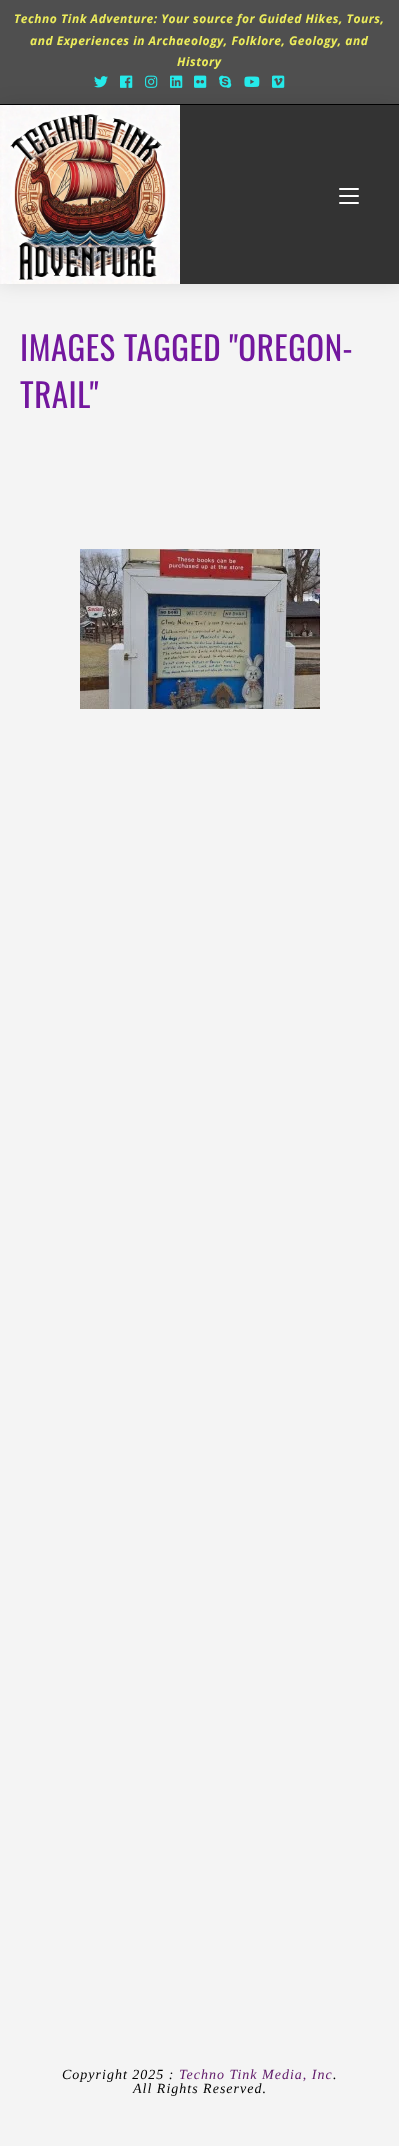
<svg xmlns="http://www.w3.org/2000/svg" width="399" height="2146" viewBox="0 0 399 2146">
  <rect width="100%" height="100%" fill="#f4f4f4"/>
  <path d="M0 0h399v104H0z" fill="#4f4f4f"/>
  <path d="M0 104h399v1H0z" fill="#000"/>
  <image x="94" y="76" width="14" height="12" href="img/1.png"/>
  <image x="120" y="75" width="13" height="13" href="img/2.png"/>
  <image x="145" y="75" width="13" height="13" href="img/3.png"/>
  <image x="170" y="75" width="13" height="13" href="img/4.png"/>
  <image x="194" y="75" width="13" height="13" href="img/5.png"/>
  <image x="219" y="75" width="13" height="13" href="img/6.png"/>
  <image x="244" y="76" width="16" height="11" href="img/7.png"/>
  <image x="272" y="75" width="13" height="13" href="img/8.png"/>
  <path d="M0 105h399v179H0z" fill="#0000001a" filter="blur(10px)"/>
  <path d="M180 105h219v179H180z" fill="#333"/>
  <image x="0" y="105" width="180" height="179" href="img/9.png"/>
  <rect x="339" y="195" width="20" height="2" rx="1" fill="#fff"/>
  <rect x="339" y="188" width="20" height="2" rx="1" fill="#fff"/>
  <rect x="339" y="202" width="20" height="2" rx="1" fill="#fff"/>
  <image x="80" y="549" width="240" height="160" href="img/10.png"/>
  <g font-family="Open Sans" font-size="12" font-weight="bold" font-style="italic" letter-spacing="0.5" fill="#eded5c">
    <text x="14" y="23">Techno Tink Adventure: Your source for Guided Hikes, Tours,</text>
    <text x="30" y="45">and Experiences in Archaeology, Folklore, Geology, and</text>
    <text x="177" y="66">History</text>
  </g>
  <g font-family="Oswald" font-size="33" letter-spacing="0.5" fill="#73179e">
    <text x="20" y="361">IMAGES TAGGED "OREGON-</text>
    <text x="20" y="408">TRAIL"</text>
  </g>
  <text x="62" y="2079" font-family="Liberation Serif" font-size="14" font-style="italic" letter-spacing="1" fill="#000">Copyright 2025 :</text>
  <text x="179" y="2079" font-family="Liberation Serif" font-size="14" font-style="italic" letter-spacing="1" fill="#5f1868">Techno Tink Media, Inc</text>
  <g font-family="Liberation Serif" font-size="14" font-style="italic" letter-spacing="1" fill="#000">
    <text x="333" y="2079">.</text>
    <text x="133" y="2093">All Rights Reserved.</text>
  </g>
</svg>
